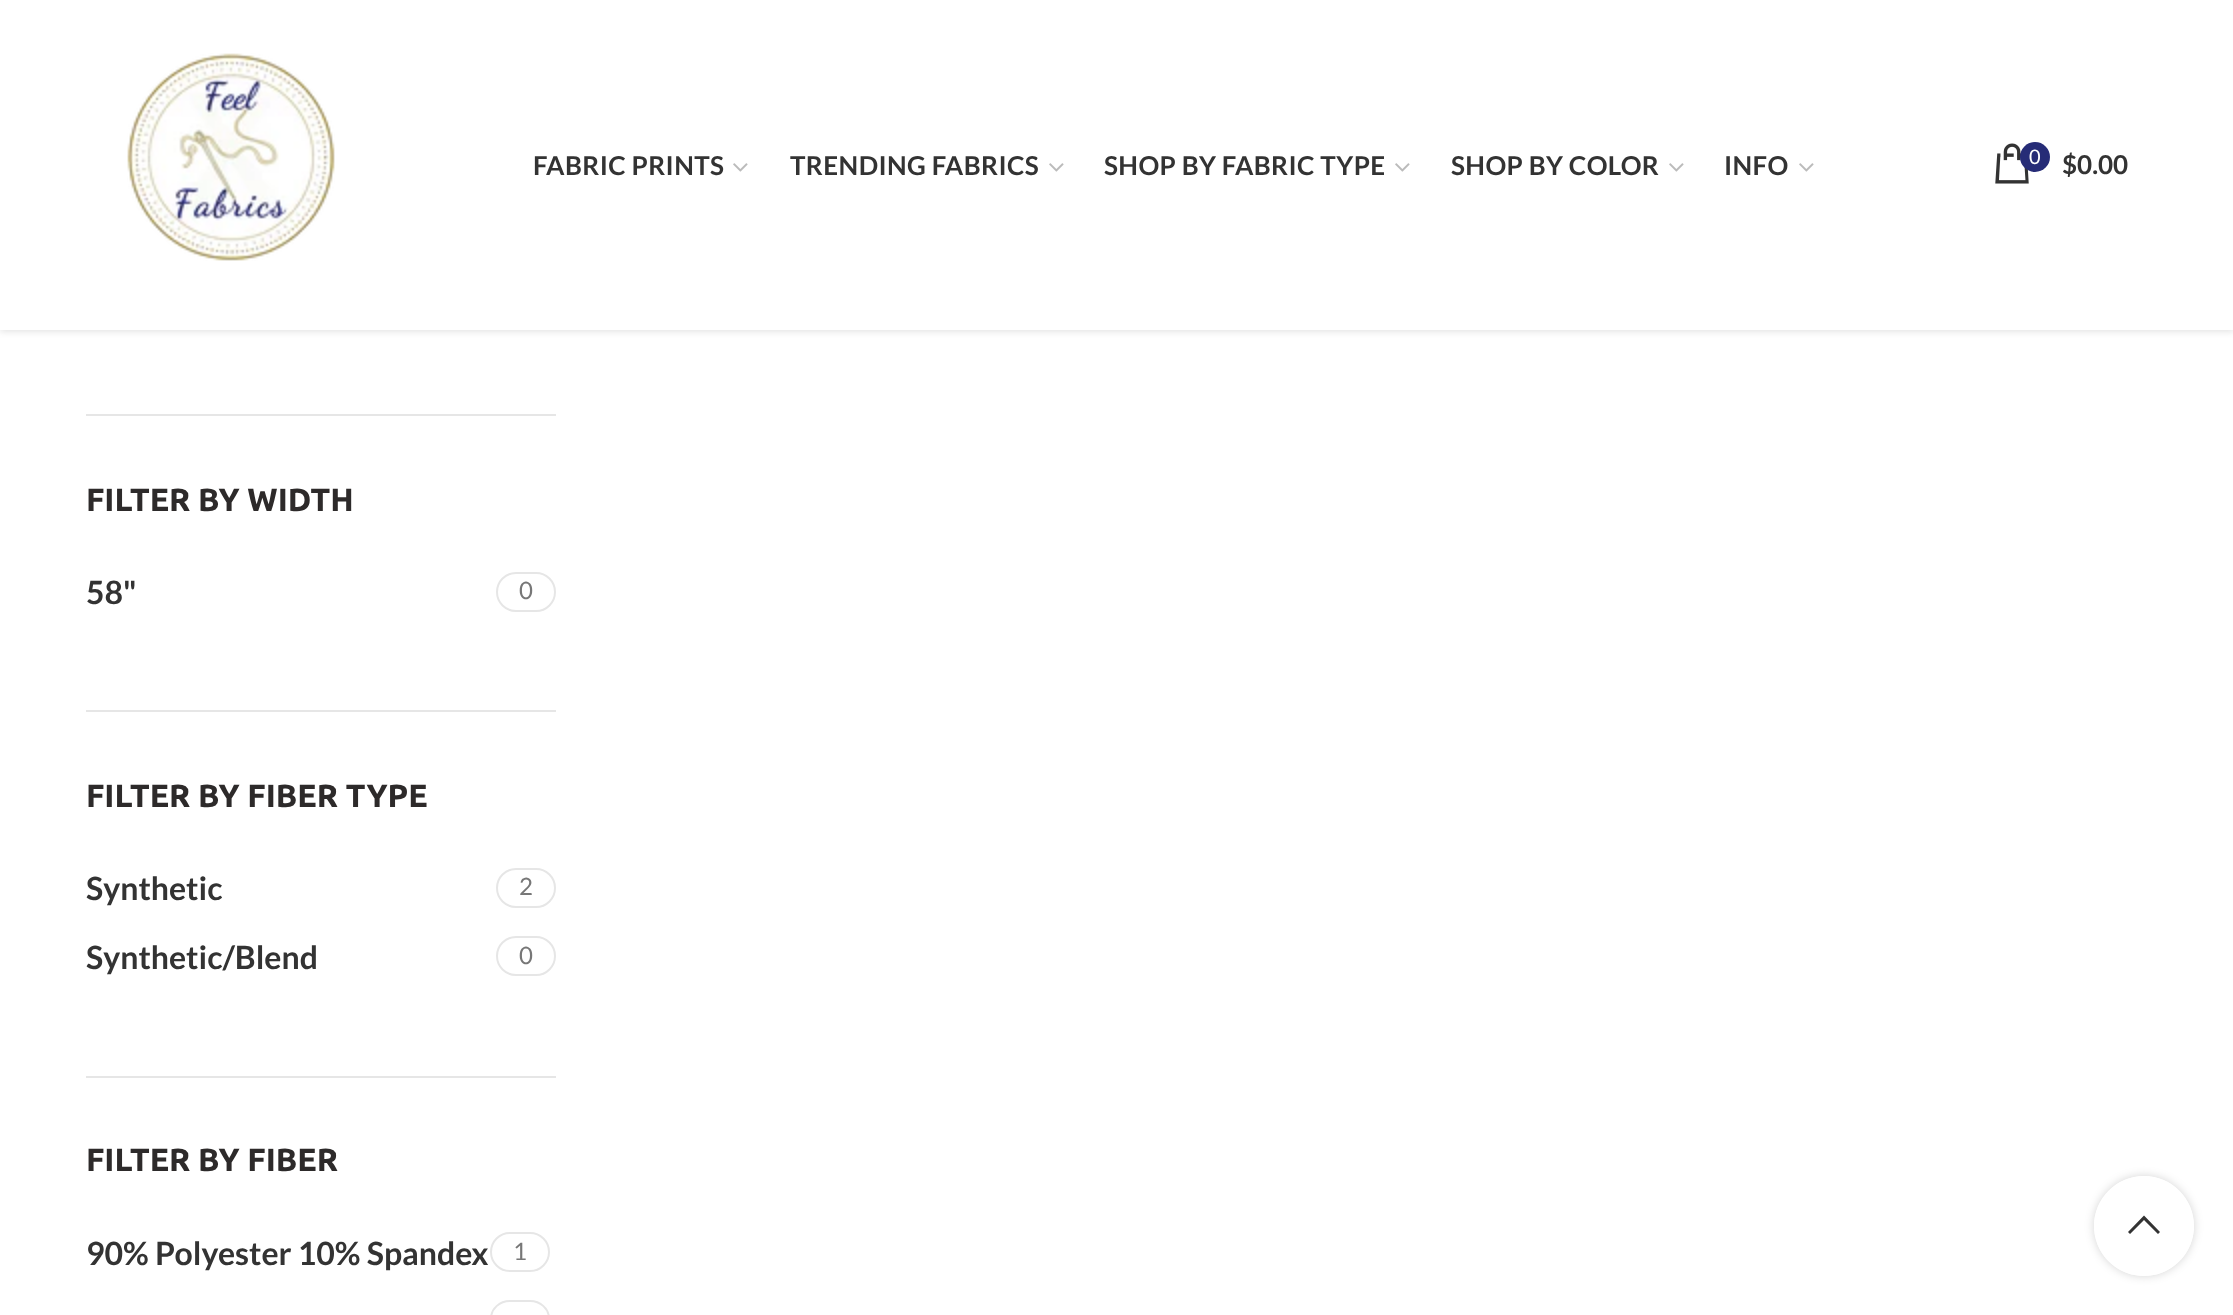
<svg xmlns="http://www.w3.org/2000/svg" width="2233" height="1315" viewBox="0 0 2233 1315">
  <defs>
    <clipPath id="clip1"><path d="M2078 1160H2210V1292H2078ZM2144 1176C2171.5 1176 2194 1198.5 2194 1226C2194 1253.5 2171.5 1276 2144 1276C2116.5 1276 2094 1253.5 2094 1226C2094 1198.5 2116.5 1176 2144 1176Z" clip-rule="evenodd"/></clipPath>
  </defs>
  <rect width="100%" height="100%" fill="#fff"/>
  <path d="M0 2h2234v330H0z" fill="#0000001a" filter="blur(3px)"/>
  <path d="M0 0h2233v330H0z" fill="#fff"/>
  <image x="127" y="53" width="208" height="208" href="img/1.png"/>
  <image x="733" y="163" width="15" height="9" href="img/2.png"/>
  <image x="1049" y="163" width="15" height="9" href="img/2.png"/>
  <image x="1395" y="163" width="15" height="9" href="img/2.png"/>
  <image x="1669" y="163" width="15" height="9" href="img/2.png"/>
  <image x="1799" y="163" width="15" height="9" href="img/2.png"/>
  <image x="1995" y="143" width="34" height="41" href="img/3.png"/>
  <circle cx="2035" cy="157" r="15" fill="#262c77"/>
  <path d="M86 414h470v2H86z" fill="#e6e6e6"/>
  <path d="M86 710h470v2H86z" fill="#e6e6e6"/>
  <rect x="497" y="573" width="58" height="38" rx="19" fill="none" stroke="#e6e6e6" stroke-width="2"/>
  <path d="M86 1076h470v2H86z" fill="#e6e6e6"/>
  <rect x="497" y="869" width="58" height="38" rx="19" fill="none" stroke="#e6e6e6" stroke-width="2"/>
  <rect x="497" y="937" width="58" height="38" rx="19" fill="none" stroke="#e6e6e6" stroke-width="2"/>
  <rect x="491" y="1233" width="58" height="38" rx="19" fill="none" stroke="#e6e6e6" stroke-width="2"/>
  <rect x="491" y="1301" width="58" height="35" rx="19" fill="none" stroke="#e6e6e6" stroke-width="2"/>
  <g clip-path="url(#clip1)">
    <rect x="2094" y="1176" width="100" height="100" rx="50" fill="#0000002b" filter="blur(5px)"/>
  </g>
  <circle cx="2144" cy="1226" r="50" fill="#ffffffe6"/>
  <path d="M2144 1215.5L2160 1232L2158 1234L2144 1220L2130 1234L2128 1232Z" fill="#333"/>
  <g font-family="Lato" font-size="26" font-weight="bold" letter-spacing="0.4" fill="#333">
    <text x="533" y="175">FABRIC PRINTS</text>
    <text x="790" y="175">TRENDING FABRICS</text>
    <text x="1104" y="175">SHOP BY FABRIC TYPE</text>
    <text x="1451" y="175">SHOP BY COLOR</text>
    <text x="1724" y="175">INFO</text>
  </g>
  <text x="2029" y="164" font-family="Lato" font-size="20" fill="#fff">0</text>
  <text x="2062" y="174" font-family="Lato" font-size="26" font-weight="bold" fill="#333">$0.00</text>
  <text x="86" y="511" font-family="Ubuntu" font-size="32" font-weight="bold" fill="#2d2a2a">FILTER BY WIDTH</text>
  <text x="86" y="604" font-family="Lato" font-size="32" font-weight="bold" fill="#333">58"</text>
  <text x="519" y="599" font-family="Lato" font-size="24" fill="#777">0</text>
  <text x="86" y="807" font-family="Ubuntu" font-size="32" font-weight="bold" fill="#2d2a2a">FILTER BY FIBER TYPE</text>
  <text x="86" y="900" font-family="Lato" font-size="32" font-weight="bold" fill="#333">Synthetic</text>
  <text x="519" y="895" font-family="Lato" font-size="24" fill="#777">2</text>
  <text x="86" y="969" font-family="Lato" font-size="32" font-weight="bold" fill="#333">Synthetic/Blend</text>
  <text x="519" y="964" font-family="Lato" font-size="24" fill="#777">0</text>
  <text x="86" y="1171" font-family="Ubuntu" font-size="32" font-weight="bold" fill="#2d2a2a">FILTER BY FIBER</text>
  <text x="86" y="1265" font-family="Lato" font-size="32" font-weight="bold" fill="#333">90% Polyester 10% Spandex</text>
  <text x="513" y="1260" font-family="Lato" font-size="24" fill="#777">1</text>
</svg>
